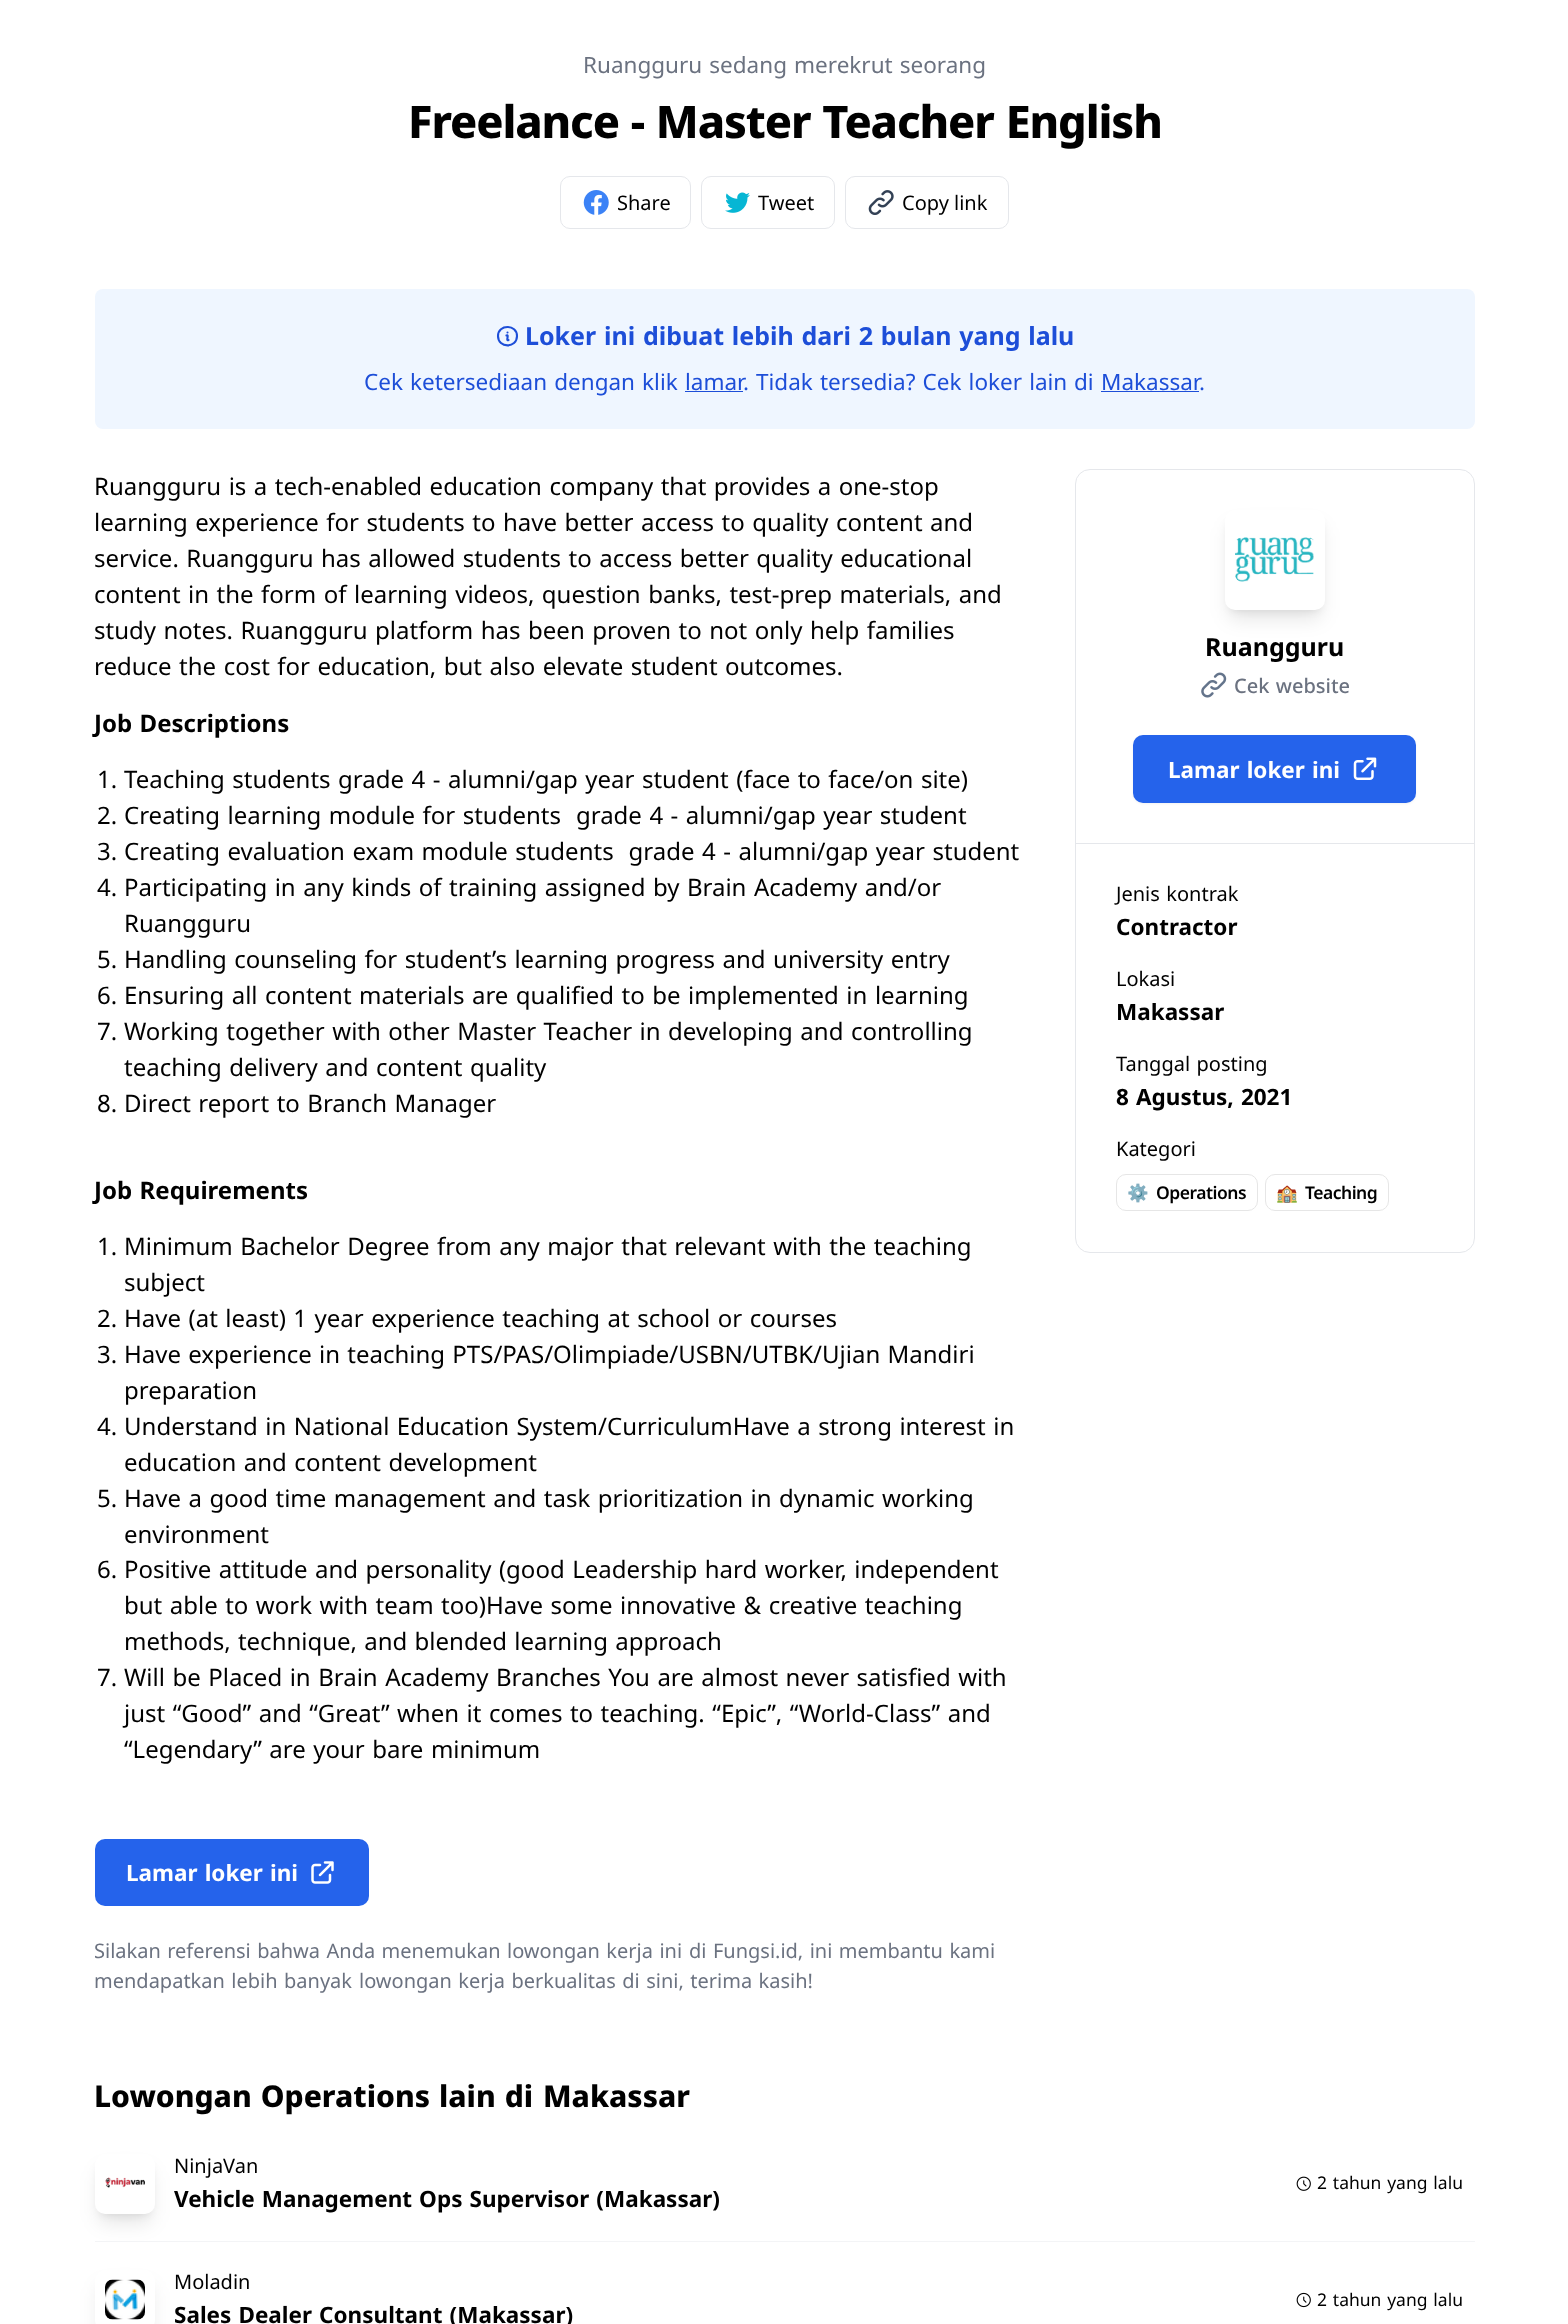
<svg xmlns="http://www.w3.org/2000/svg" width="1568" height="2324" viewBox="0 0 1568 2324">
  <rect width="100%" height="100%" fill="#fff"/>
  <rect x="560.5" y="176.5" width="130" height="52" rx="9.5" fill="none" stroke="#e5e7eb"/>
  <image x="583" y="190" width="26" height="25" href="img/1.png"/>
  <rect x="701.5" y="176.5" width="133" height="52" rx="9.5" fill="none" stroke="#e5e7eb"/>
  <image x="725" y="192" width="25" height="21" href="img/2.png"/>
  <rect x="845.5" y="176.5" width="163" height="52" rx="9.5" fill="none" stroke="#e5e7eb"/>
  <image x="868" y="190" width="26" height="25" href="img/3.png"/>
  <rect x="95" y="289" width="1380" height="140" rx="8" fill="#eff6ff"/>
  <path d="M506.5 335.5C509.5 334 505.5 341.5 508.5 340M517 336C517 348.5 498 348.5 498 336C498 324 517 324 517 336ZM507.5 332.5H507.5Z" fill="none" stroke="#1d4ed8" stroke-width="2.1" stroke-linecap="round" stroke-linejoin="round"/>
  <path d="M685 391h58v1H685z" fill="#1d4ed8"/>
  <path d="M1101 391h98v1H1101z" fill="#1d4ed8"/>
  <rect x="95" y="1839" width="274" height="67" rx="10" fill="#2563eb"/>
  <image x="311" y="1861" width="23" height="23" href="img/4.png"/>
  <rect x="1075.5" y="469.5" width="399" height="783" rx="14.5" fill="none" stroke="#e5e7eb"/>
  <path d="M1076 843h398v1H1076z" fill="#e5e7eb"/>
  <rect x="1230" y="520" width="90" height="90" rx="5" fill="#0000001a" filter="blur(4px)"/>
  <rect x="1229" y="526" width="92" height="93" rx="6" fill="#0000001a" filter="blur(9.5px)"/>
  <rect x="1225" y="510" width="100" height="100" rx="10" fill="#fff"/>
  <image x="1235" y="537" width="79" height="45" href="img/5.png"/>
  <image x="1201" y="672" width="26" height="26" href="img/6.png"/>
  <rect x="1133" y="736" width="283" height="68" rx="10" fill="#0000000d" filter="blur(1px)"/>
  <rect x="1133" y="735" width="283" height="68" rx="10" fill="#2563eb"/>
  <image x="1353" y="757" width="24" height="23" href="img/7.png"/>
  <rect x="1116.5" y="1174.5" width="141" height="36" rx="9.5" fill="none" stroke="#e6e6e6"/>
  <rect x="1265.5" y="1174.5" width="123" height="36" rx="9.5" fill="none" stroke="#e6e6e6"/>
  <rect x="100" y="2164" width="50" height="50" rx="5" fill="#0000001a" filter="blur(4px)"/>
  <rect x="99" y="2170" width="52" height="53" rx="6" fill="#0000001a" filter="blur(9.5px)"/>
  <rect x="95" y="2154" width="60" height="60" rx="10" fill="#fff"/>
  <image x="105" y="2177" width="40" height="11" href="img/8.png"/>
  <image x="1296" y="2176" width="15" height="15" href="img/9.png"/>
  <path d="M95 2241h1380v1H95z" fill="#f3f4f6"/>
  <rect x="99" y="2286" width="52" height="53" rx="6" fill="#0000001a" filter="blur(9.5px)"/>
  <rect x="95" y="2270" width="60" height="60" rx="10" fill="#fff"/>
  <image x="105" y="2279" width="40" height="41" href="img/10.png"/>
  <image x="1296" y="2292" width="15" height="16" href="img/11.png"/>
  <text x="583" y="73" word-spacing="1.25" font-family="Noto Sans" font-size="22.5" fill="#6b7280">Ruangguru sedang merekrut seorang</text>
  <text x="408" y="138" word-spacing="1.25" font-family="Noto Sans" font-size="45" font-weight="800" letter-spacing="-1.1" fill="#000">Freelance - Master Teacher English</text>
  <g font-family="Noto Sans" font-size="20" fill="#000">
    <text x="617" y="210">Share</text>
    <text x="758" y="210">Tweet</text>
    <text x="902" y="210">Copy link</text>
  </g>
  <text x="525" y="345" word-spacing="1.25" font-family="Noto Sans" font-size="25" font-weight="bold" fill="#1d4ed8">Loker ini dibuat lebih dari 2 bulan yang lalu</text>
  <g font-family="Noto Sans" font-size="22.5" fill="#1d4ed8">
    <text x="364" y="390" word-spacing="1.25">Cek ketersediaan dengan klik</text>
    <text x="685" y="390">lamar</text>
    <text x="756" y="390" word-spacing="1.25">Tidak tersedia? Cek loker lain</text>
    <text x="1074" y="390">di</text>
    <text x="1101" y="390">Makassar</text>
    <text x="743" y="390">.</text>
    <text x="1199" y="390">.</text>
  </g>
  <g font-family="Noto Sans" font-size="24" fill="#000">
    <text x="94" y="495" word-spacing="1.25">Ruangguru is a tech-enabled education company that provides a one-stop</text>
    <text x="94" y="531" word-spacing="1.25">learning experience for students to have better access to quality content and</text>
    <text x="94" y="567" word-spacing="1.25">service. Ruangguru has allowed students to access better quality educational</text>
    <text x="94" y="603" word-spacing="1.25">content in the form of learning videos, question banks, test-prep materials, and</text>
    <text x="94" y="639" word-spacing="1.25">study notes. Ruangguru platform has been proven to not only help families</text>
    <text x="94" y="675" word-spacing="1.25">reduce the cost for education, but also elevate student outcomes.</text>
  </g>
  <text x="94" y="732" word-spacing="1.25" font-family="Noto Sans" font-size="24" font-weight="bold" fill="#000">Job Descriptions</text>
  <g font-family="Noto Sans" font-size="24" fill="#000">
    <text x="97" y="788">1.</text>
    <text x="124" y="788" word-spacing="1.25">Teaching students grade 4 - alumni/gap year student (face to face/on site)</text>
    <text x="97" y="824">2.</text>
    <text x="124" y="824" word-spacing="1.25" xml:space="preserve">Creating learning module for students  grade 4 - alumni/gap year student</text>
    <text x="97" y="860">3.</text>
    <text x="124" y="860" word-spacing="1.25" xml:space="preserve">Creating evaluation exam module students  grade 4 - alumni/gap year student</text>
    <text x="97" y="896">4.</text>
    <text x="124" y="896" word-spacing="1.25">Participating in any kinds of training assigned by Brain Academy and/or</text>
    <text x="124" y="932">Ruangguru</text>
    <text x="97" y="968">5.</text>
    <text x="124" y="968" word-spacing="1.25">Handling counseling for student’s learning progress and university entry</text>
    <text x="97" y="1004">6.</text>
    <text x="124" y="1004" word-spacing="1.25">Ensuring all content materials are qualified to be implemented in learning</text>
    <text x="97" y="1040">7.</text>
    <text x="124" y="1040" word-spacing="1.25">Working together with other Master Teacher in developing and controlling</text>
    <text x="124" y="1076" word-spacing="1.25">teaching delivery and content quality</text>
    <text x="97" y="1112">8.</text>
    <text x="124" y="1112" word-spacing="1.25">Direct report to Branch Manager</text>
  </g>
  <text x="94" y="1199" word-spacing="1.25" font-family="Noto Sans" font-size="24" font-weight="bold" fill="#000">Job Requirements</text>
  <g font-family="Noto Sans" font-size="24" fill="#000">
    <text x="97" y="1255">1.</text>
    <text x="124" y="1255" word-spacing="1.25">Minimum Bachelor Degree from any major that relevant with the teaching</text>
    <text x="124" y="1291">subject</text>
    <text x="97" y="1327">2.</text>
    <text x="124" y="1327" word-spacing="1.25">Have (at least) 1 year experience teaching at school or courses</text>
    <text x="97" y="1363">3.</text>
    <text x="124" y="1363" word-spacing="1">Have experience in teaching PTS/PAS/Olimpiade/USBN/UTBK/Ujian Mandiri</text>
    <text x="124" y="1399">preparation</text>
    <text x="97" y="1435">4.</text>
    <text x="124" y="1435" word-spacing="1.25">Understand in National Education System/CurriculumHave a strong interest in</text>
    <text x="124" y="1471" word-spacing="1.25">education and content development</text>
    <text x="97" y="1507">5.</text>
    <text x="124" y="1507" word-spacing="1.25">Have a good time management and task prioritization in dynamic working</text>
    <text x="124" y="1543">environment</text>
    <text x="97" y="1578">6.</text>
    <text x="124" y="1578" word-spacing="1.25">Positive attitude and personality (good Leadership hard worker, independent</text>
    <text x="124" y="1614" word-spacing="1.25">but able to work with team too)Have some innovative &amp; creative teaching</text>
    <text x="124" y="1650" word-spacing="1">methods, technique, and blended learning approach</text>
    <text x="97" y="1686">7.</text>
    <text x="124" y="1686" word-spacing="1.25">Will be Placed in Brain Academy Branches You are almost never satisfied with</text>
    <text x="124" y="1722" word-spacing="1.25">just “Good” and “Great” when it comes to teaching. “Epic”, “World-Class” and</text>
    <text x="124" y="1758" word-spacing="1.25">“Legendary” are your bare minimum</text>
  </g>
  <text x="126" y="1881" word-spacing="1.25" font-family="Noto Sans" font-size="22.5" font-weight="bold" fill="#fff">Lamar loker ini</text>
  <g font-family="Noto Sans" font-size="20" fill="#6b7280">
    <text x="94" y="1958" word-spacing="1.25">Silakan referensi bahwa Anda menemukan lowongan kerja ini</text>
    <text x="689" y="1958" word-spacing="1.25">di Fungsi.id, ini membantu kami</text>
    <text x="94" y="1988" word-spacing="1.25">mendapatkan lebih banyak</text>
    <text x="359" y="1988" word-spacing="1.25">lowongan kerja berkualitas di sini, terima kasih!</text>
  </g>
  <text x="1205" y="656" font-family="Noto Sans" font-size="25" font-weight="bold" fill="#000">Ruangguru</text>
  <text x="1234" y="693" word-spacing="1.25" font-family="Noto Sans" font-size="20" font-weight="500" fill="#6b7280">Cek website</text>
  <text x="1168" y="778" word-spacing="1.25" font-family="Noto Sans" font-size="22.5" font-weight="bold" fill="#fff">Lamar loker ini</text>
  <text x="1116" y="901" word-spacing="1.25" font-family="Noto Sans" font-size="20" fill="#000">Jenis kontrak</text>
  <text x="1116" y="935" font-family="Noto Sans" font-size="22.5" font-weight="bold" fill="#000">Contractor</text>
  <text x="1116" y="986" font-family="Noto Sans" font-size="20" fill="#000">Lokasi</text>
  <text x="1116" y="1020" font-family="Noto Sans" font-size="22.5" font-weight="bold" fill="#000">Makassar</text>
  <text x="1116" y="1071" word-spacing="1.25" font-family="Noto Sans" font-size="20" fill="#000">Tanggal posting</text>
  <text x="1116" y="1105" word-spacing="1.25" font-family="Noto Sans" font-size="22.5" font-weight="bold" fill="#000">8 Agustus, 2021</text>
  <text x="1116" y="1156" font-family="Noto Sans" font-size="20" fill="#000">Kategori</text>
  <text x="1127" y="1199" font-family="Noto Color Emoji" font-size="17.5" letter-spacing="-0.5" fill="#000">⚙</text>
  <text x="1156" y="1199" font-family="Noto Sans" font-size="17.5" font-weight="600" letter-spacing="-0.5" fill="#000">Operations</text>
  <text x="1276" y="1199" font-family="Noto Color Emoji" font-size="17.5" letter-spacing="-0.5" fill="#000">🏫</text>
  <text x="1305" y="1199" font-family="Noto Sans" font-size="17.5" font-weight="600" letter-spacing="-0.5" fill="#000">Teaching</text>
  <g font-family="Noto Sans" font-size="30" font-weight="800" fill="#000">
    <text x="94" y="2107" word-spacing="1.25">Lowongan Operations lain di</text>
    <text x="543" y="2107">Makassar</text>
  </g>
  <text x="174" y="2173" font-family="Noto Sans" font-size="20" fill="#000">NinjaVan</text>
  <text x="174" y="2207" word-spacing="1.25" font-family="Noto Sans" font-size="22.5" font-weight="bold" fill="#000">Vehicle Management Ops Supervisor (Makassar)</text>
  <text x="1317" y="2189" word-spacing="1.25" font-family="Noto Sans" font-size="17.5" fill="#000">2 tahun yang lalu</text>
  <text x="174" y="2289" font-family="Noto Sans" font-size="20" fill="#000">Moladin</text>
  <text x="174" y="2323" word-spacing="1.25" font-family="Noto Sans" font-size="22.5" font-weight="bold" fill="#000">Sales Dealer Consultant (Makassar)</text>
  <text x="1317" y="2306" word-spacing="1.25" font-family="Noto Sans" font-size="17.5" fill="#000">2 tahun yang lalu</text>
</svg>
